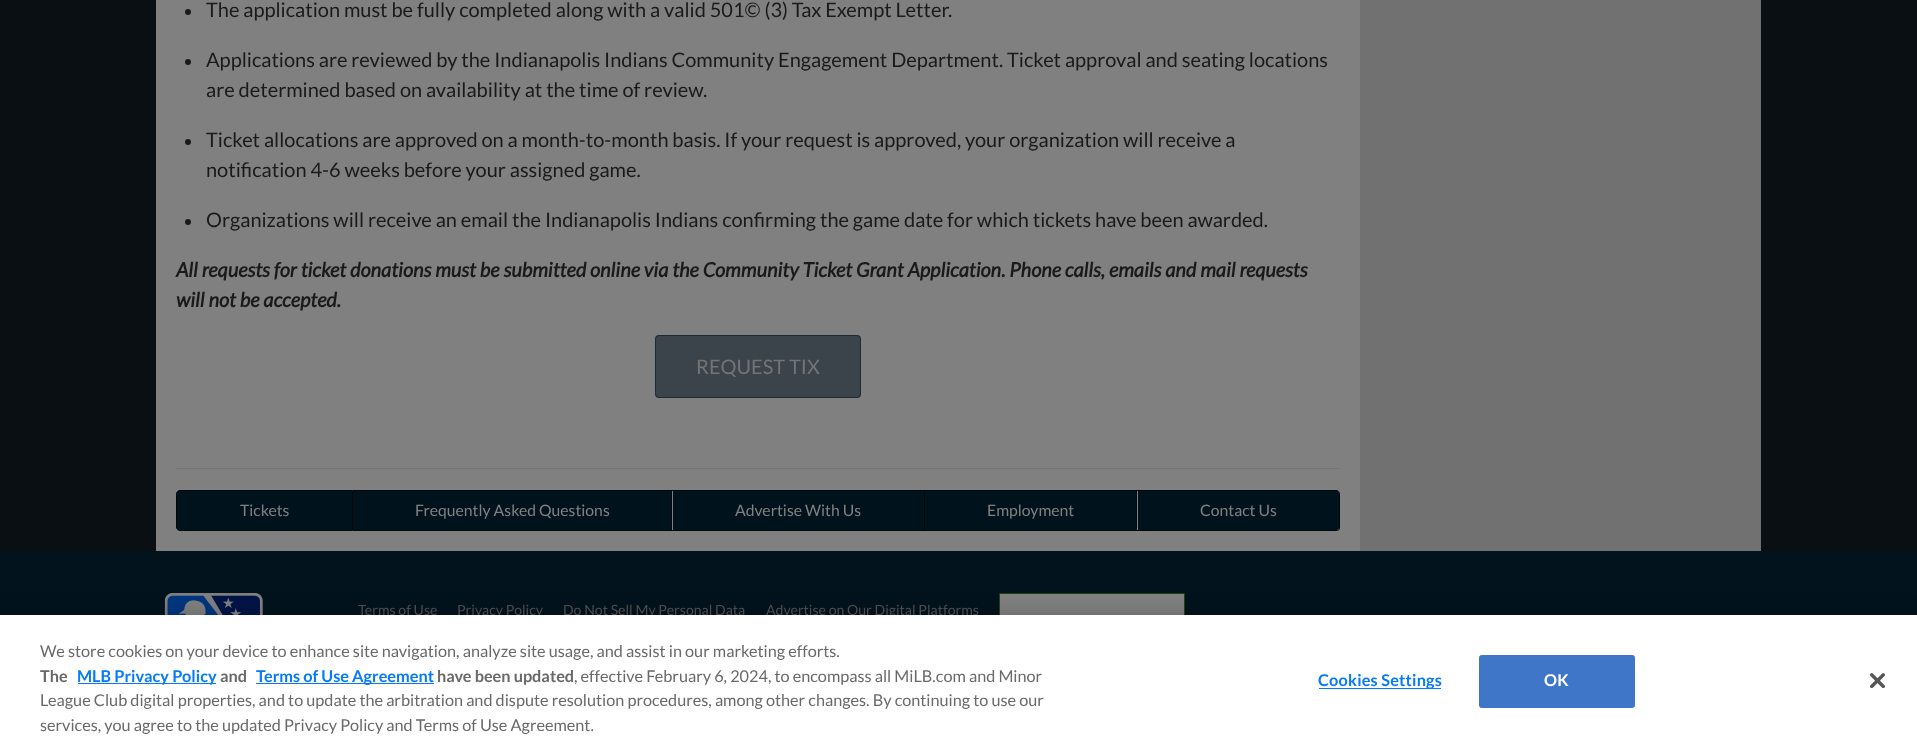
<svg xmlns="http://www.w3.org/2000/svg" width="1917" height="749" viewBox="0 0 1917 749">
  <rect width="100%" height="100%" fill="#0a0f13"/>
  <path d="M1360 0h401v551H1360z" fill="#717171"/>
  <path d="M156 0h1204v551H156z" fill="#808080"/>
  <circle cx="188" cy="12" r="3" fill="#1a1a1a"/>
  <circle cx="188" cy="62" r="3" fill="#1a1a1a"/>
  <circle cx="188" cy="142" r="3" fill="#1a1a1a"/>
  <circle cx="188" cy="222" r="3" fill="#1a1a1a"/>
  <rect x="655" y="335" width="206" height="63" rx="4" fill="#3a444a"/>
  <rect x="655.5" y="335.5" width="205" height="62" rx="3.5" fill="none" stroke="#00131d80"/>
  <path d="M176 468h1164v1H176z" fill="#767676"/>
  <path d="M180 490.5H352.5V530.5H180C178 530.5 176.5 529 176.5 527V494C176.5 492 178 490.5 180 490.5Z" fill="#00131d" stroke="#00080b"/>
  <path d="M353 491h318v39H353z" fill="#00131d"/>
  <path d="M353 490h785v1H353z" fill="#00080b"/>
  <path d="M671 490h1v41H671z" fill="#00080b"/>
  <path d="M353 530h320v1H353z" fill="#00080b"/>
  <path d="M673 491h251v39H673z" fill="#00131d"/>
  <path d="M924 490h1v41H924z" fill="#00080b"/>
  <path d="M673 530h252v1H673z" fill="#00080b"/>
  <path d="M925 491h211v39H925z" fill="#00131d"/>
  <path d="M1136 490h1v41H1136z" fill="#00080b"/>
  <path d="M925 530h213v1H925z" fill="#00080b"/>
  <path d="M1138 491H1336.5C1338 491 1339 492 1339 493.5V527.5C1339 529 1338 530 1336.5 530H1138Z" fill="#00131d"/>
  <path d="M1138 490H1336C1338 490 1340 492 1340 494V528C1340 530 1338 531 1336 531H1138ZM1138 491H1336C1338 491 1339 492 1339 494V528C1339 529 1338 530 1336 530H1138Z" fill="#00080b" fill-rule="evenodd"/>
  <path d="M0 551h1917v64H0z" fill="#03131d"/>
  <image x="164" y="593" width="99" height="22" href="img/1.png"/>
  <path d="M1000 594h184v21H1000z" fill="#808080"/>
  <path d="M999.5 593.5h185v46H999.5z" fill="none" stroke="#254111"/>
  <path d="M0 615h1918v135H0z" fill="#00000033" filter="blur(11px)"/>
  <g font-family="Lato" font-size="20" fill="#1a1a1a">
    <text x="206" y="17">The application must be fully completed along with a valid 501© (3) Tax Exempt Letter.</text>
    <text x="206" y="67">Applications are reviewed by the Indianapolis Indians Community Engagement Department. Ticket approval and seating locations</text>
    <text x="206" y="97">are determined based on availability at the time of review.</text>
    <text x="206" y="147">Ticket allocations are approved on a month-to-month basis. If your request is approved, your organization will receive a</text>
    <text x="206" y="177">notification 4-6 weeks before your assigned game.</text>
    <text x="206" y="227">Organizations will receive an email the Indianapolis Indians confirming the game date for which tickets have been awarded.</text>
  </g>
  <g font-family="Lato" font-size="20" font-weight="bold" font-style="italic" fill="#1a1a1a">
    <text x="176" y="277">All requests for ticket donations must be submitted online via the Community Ticket Grant Application. Phone calls, emails and mail requests</text>
    <text x="176" y="307">will not be accepted.</text>
  </g>
  <text x="696" y="374" font-family="Lato" font-size="20" fill="#727475">REQUEST TIX</text>
  <g font-family="Lato" font-size="15.75" fill="#808080">
    <text x="240" y="516">Tickets</text>
    <text x="415" y="516">Frequently Asked Questions</text>
    <text x="735" y="516">Advertise With Us</text>
    <text x="987" y="516">Employment</text>
    <text x="1200" y="516">Contact Us</text>
  </g>
  <g font-family="Lato" font-size="14.1" fill="#4d4d4d">
    <text x="358" y="615">Terms of Use</text>
    <text x="457" y="615">Privacy Policy</text>
    <text x="563" y="615">Do Not Sell My Personal Data</text>
    <text x="766" y="615">Advertise on Our Digital Platforms</text>
  </g>
  <path d="M0 615h1917v134H0z" fill="#fff"/>
  <text x="40" y="657" font-family="Lato" font-size="16.25" fill="#696969">We store cookies on your device to enhance site navigation, analyze site usage, and assist in our marketing efforts.</text>
  <text x="40" y="682" font-family="Lato" font-size="16.25" font-weight="bold" fill="#696969">The</text>
  <path d="M78 683h138v1H78z" fill="#057aff"/>
  <text x="77" y="682" font-family="Lato" font-size="16.25" font-weight="bold" fill="#057aff">MLB Privacy Policy</text>
  <text x="220" y="682" font-family="Lato" font-size="16.25" font-weight="bold" fill="#696969">and</text>
  <path d="M256 683h178v1H256z" fill="#057aff"/>
  <text x="256" y="682" font-family="Lato" font-size="16.25" font-weight="bold" fill="#057aff">Terms of Use Agreement</text>
  <text x="437" y="682" font-family="Lato" font-size="16.25" font-weight="bold" fill="#696969">have been updated</text>
  <g font-family="Lato" font-size="16.25" fill="#696969">
    <text x="574" y="682">, effective February 6, 2024, to encompass all MiLB.com and Minor</text>
    <text x="40" y="706">League Club digital properties, and to update the arbitration and dispute resolution procedures, among other changes. By continuing to use our</text>
    <text x="40" y="731">services, you agree to the updated Privacy Policy and Terms of Use Agreement.</text>
  </g>
  <path d="M1319 688h122v1H1319z" fill="#057aff"/>
  <text x="1318" y="686" font-family="Lato" font-size="16.25" font-weight="bold" letter-spacing="0.2" fill="#057aff">Cookies Settings</text>
  <rect x="1479.5" y="655.5" width="155" height="52" rx="2" fill="#4076c7" stroke="#4076c7"/>
  <text x="1544" y="686" font-family="Lato" font-size="16.25" font-weight="bold" letter-spacing="0.2" fill="#fff">OK</text>
  <image x="1870" y="673" width="15" height="15" href="img/2.png"/>
</svg>
